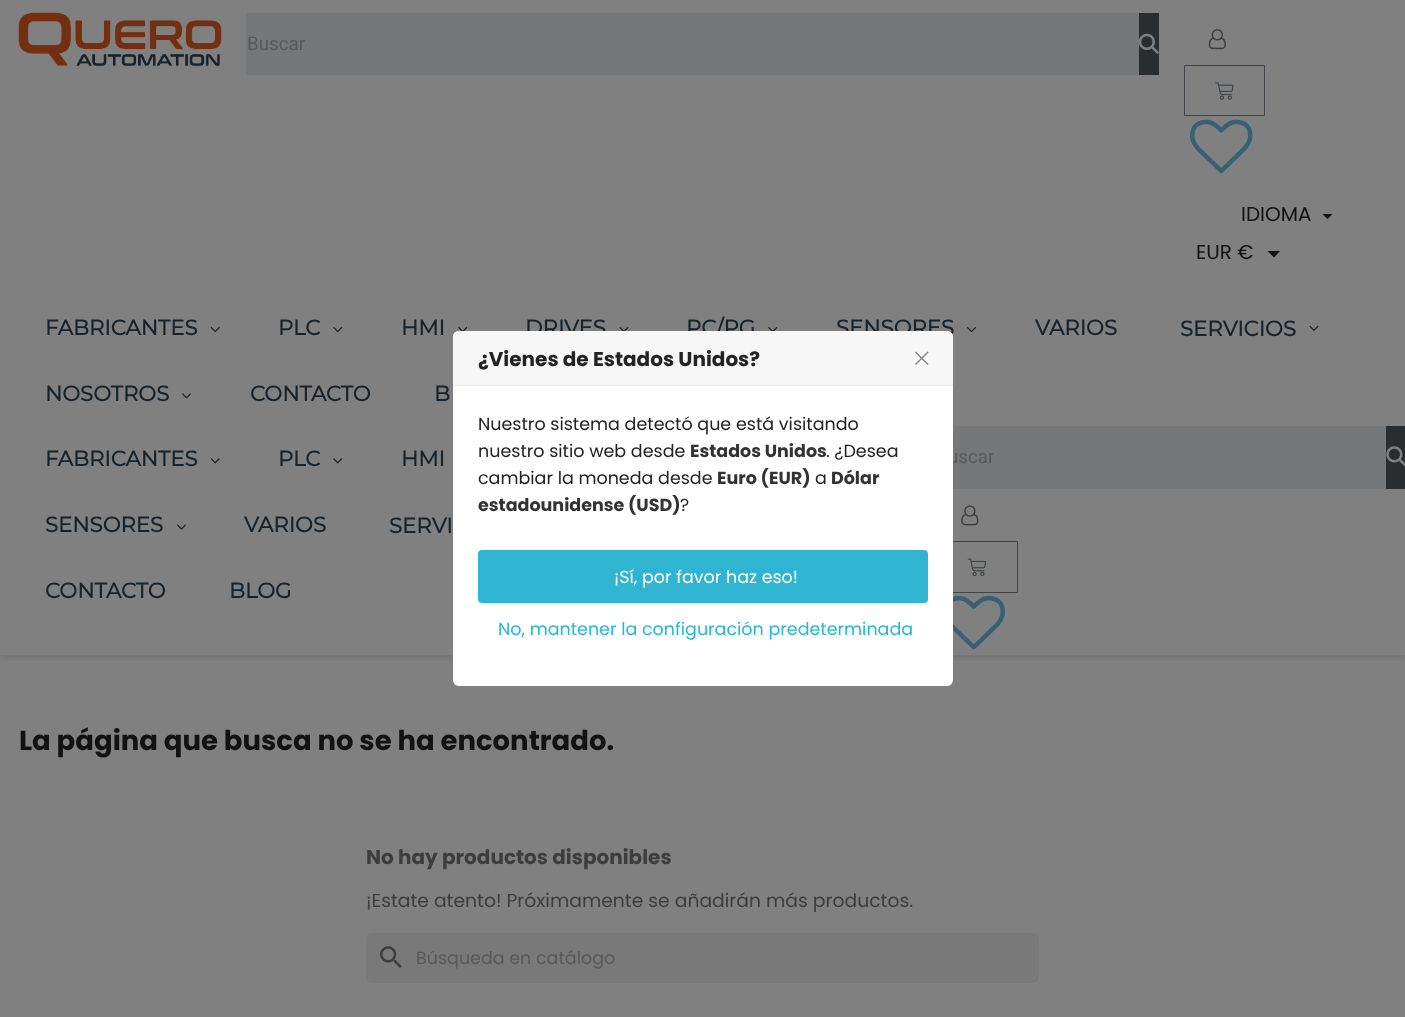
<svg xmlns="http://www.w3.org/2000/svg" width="1405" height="1017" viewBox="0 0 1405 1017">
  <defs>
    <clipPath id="clip1"><path d="M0 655h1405v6H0z"/></clipPath>
  </defs>
  <rect width="100%" height="100%" fill="#808080"/>
  <g clip-path="url(#clip1)">
    <path d="M0 3h1405v655H0z" fill="#0000001c" filter="blur(3px)"/>
  </g>
  <image x="18" y="12" width="204" height="55" href="img/1.png"/>
  <path d="M246 13h893v62H246z" fill="#767778"/>
  <path d="M1139 13h20v62H1139z" fill="#2a2d30"/>
  <image x="1139" y="33" width="20" height="21" href="img/2.png"/>
  <image x="1208" y="29" width="18" height="21" href="img/3.png"/>
  <path d="M1184.5 65.5h80v50H1184.5z" fill="none" stroke="#414549"/>
  <image x="1215" y="82" width="19" height="18" href="img/4.png"/>
  <image x="1190" y="119" width="63" height="55" href="img/5.png"/>
  <path d="M1322.5 214H1332.5L1327.5 219Z" fill="#121212"/>
  <path d="M1267.5 251H1280L1274 257.5Z" fill="#121212"/>
  <image x="210" y="327" width="10" height="6" href="img/6.png"/>
  <image x="333" y="327" width="10" height="6" href="img/7.png"/>
  <image x="458" y="327" width="10" height="4" href="img/8.png"/>
  <image x="619" y="327" width="10" height="4" href="img/9.png"/>
  <image x="768" y="327" width="10" height="4" href="img/8.png"/>
  <image x="967" y="327" width="9" height="6" href="img/10.png"/>
  <image x="1309" y="325" width="10" height="6" href="img/11.png"/>
  <image x="182" y="393" width="9" height="6" href="img/12.png"/>
  <image x="210" y="458" width="10" height="6" href="img/13.png"/>
  <image x="333" y="458" width="10" height="6" href="img/14.png"/>
  <image x="177" y="524" width="9" height="6" href="img/15.png"/>
  <path d="M953 426h433v63H953z" fill="#767778"/>
  <path d="M1386 426h19v63H1386z" fill="#2a2d30"/>
  <image x="1386" y="446" width="19" height="21" href="img/16.png"/>
  <image x="961" y="505" width="18" height="21" href="img/17.png"/>
  <path d="M936.5 541.5h81v51H936.5z" fill="none" stroke="#414549"/>
  <image x="967" y="558" width="19" height="19" href="img/18.png"/>
  <image x="953" y="595" width="52" height="55" href="img/19.png"/>
  <rect x="366" y="933" width="673" height="50" rx="6" fill="#797979"/>
  <image x="380" y="946" width="22" height="22" href="img/20.png"/>
  <text x="247" y="50" font-family="Roboto" font-size="18.75" fill="#595959">Buscar</text>
  <g font-family="Poppins" font-size="20" fill="#121212">
    <text x="1241" y="221">IDIOMA</text>
    <text x="1196" y="259">EUR €</text>
  </g>
  <g font-family="Montserrat" font-size="21.25" font-weight="bold" fill="#17222b">
    <text x="45" y="335">FABRICANTES</text>
    <text x="278" y="335">PLC</text>
    <text x="401" y="335">HMI</text>
    <text x="525" y="335">DRIVES</text>
    <text x="686" y="335">PC/PG</text>
    <text x="836" y="335">SENSORES</text>
    <text x="1035" y="335">VARIOS</text>
    <text x="1180" y="336">SERVICIOS</text>
    <text x="45" y="401">NOSOTROS</text>
    <text x="250" y="401">CONTACTO</text>
    <text x="434" y="401">B</text>
    <text x="45" y="466">FABRICANTES</text>
    <text x="278" y="466">PLC</text>
    <text x="401" y="466">HMI</text>
    <text x="45" y="532">SENSORES</text>
    <text x="244" y="532">VARIOS</text>
    <text x="389" y="533">SERVI</text>
    <text x="45" y="598">CONTACTO</text>
    <text x="229" y="598">BLOG</text>
  </g>
  <text x="948" y="463" font-family="Roboto" font-size="18.75" fill="#595959">uscar</text>
  <text x="19" y="750" font-family="Poppins" font-size="27.5" font-weight="bold" fill="#121212">La página que busca no se ha encontrado.</text>
  <text x="366" y="864" font-family="Poppins" font-size="20" font-weight="bold" fill="#3d3d3d">No hay productos disponibles</text>
  <text x="366" y="907" font-family="Poppins" font-size="18.75" fill="#3d3d3d">¡Estate atento! Próximamente se añadirán más productos.</text>
  <text x="416" y="964" font-family="Poppins" font-size="17.5" fill="#595959">Búsqueda en catálogo</text>
  <rect x="453" y="331" width="500" height="355" rx="6" fill="#fff"/>
  <path d="M459 331H947C950.5 331 953 333.5 953 337V386H453V337C453 333.5 455.5 331 459 331Z" fill="#f7f7f7"/>
  <path d="M453 385h500v1H453z" fill="#eee"/>
  <text x="478" y="366" font-family="Poppins" font-size="20" font-weight="bold" fill="#232323">¿Vienes de Estados Unidos?</text>
  <path d="M927.5 351.5L928.5 352.5L916 365L915 364Z" fill="#848484"/>
  <path d="M915 352.5L916 351.5L928.5 364L927.5 365Z" fill="#848484"/>
  <g font-family="Poppins" font-size="17.5" fill="#232323">
    <text x="478" y="430">Nuestro sistema detectó que está visitando</text>
    <text x="478" y="457">nuestro sitio web desde</text>
  </g>
  <text x="690" y="457" font-family="Poppins" font-size="17.5" font-weight="bold" fill="#333">Estados Unidos</text>
  <g font-family="Poppins" font-size="17.5" fill="#232323">
    <text x="826" y="457">. ¿Desea</text>
    <text x="478" y="484">cambiar la moneda desde</text>
  </g>
  <text x="717" y="484" font-family="Poppins" font-size="17.5" font-weight="bold" fill="#333">Euro (EUR)</text>
  <text x="815" y="484" font-family="Poppins" font-size="17.5" fill="#232323">a</text>
  <g font-family="Poppins" font-size="17.5" font-weight="bold" fill="#333">
    <text x="831" y="484">Dólar</text>
    <text x="478" y="511">estadounidense (USD)</text>
  </g>
  <text x="680" y="511" font-family="Poppins" font-size="17.5" fill="#232323">?</text>
  <rect x="478" y="550" width="450" height="53" rx="4" fill="#2fb5d2"/>
  <text x="614" y="583" font-family="Poppins" font-size="17.5" fill="#fff">¡Sí, por favor haz eso!</text>
  <text x="498" y="635" font-family="Poppins" font-size="17.5" fill="#24b9d7">No, mantener la configuración predeterminada</text>
</svg>
